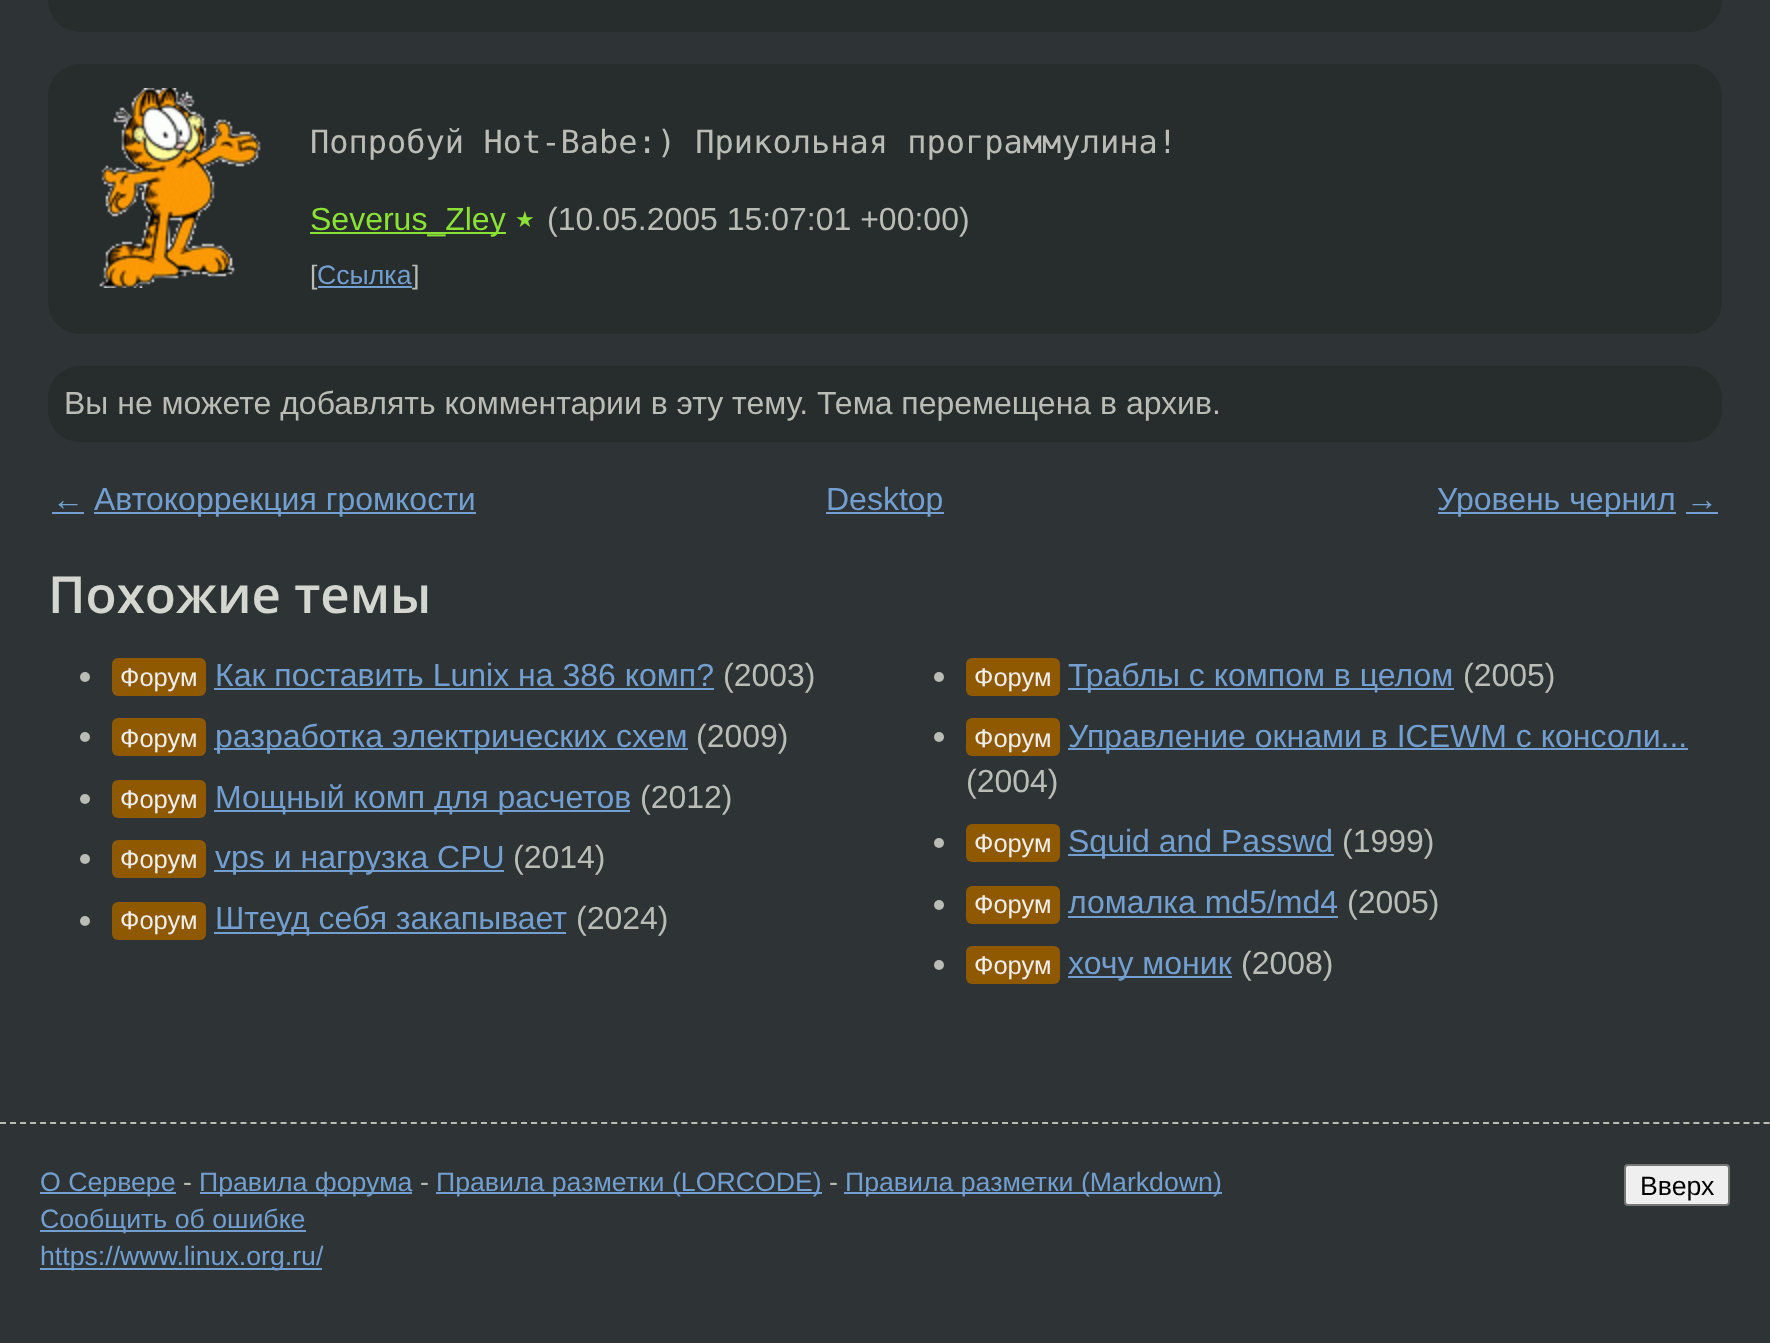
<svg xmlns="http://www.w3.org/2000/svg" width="1770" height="1343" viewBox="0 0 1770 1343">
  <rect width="100%" height="100%" fill="#2e3436"/>
  <rect x="48" y="-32" width="1674" height="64" rx="32" fill="#272c2d"/>
  <rect x="48" y="64" width="1674" height="270" rx="32" fill="#272c2d"/>
  <image x="99" y="88" width="162" height="200" href="img/1.png"/>
  <path d="M310 232h196v2H310z" fill="#8ae234"/>
  <path d="M318 286h94v2H318z" fill="#729fcf"/>
  <rect x="48" y="366" width="1674" height="76" rx="32" fill="#272c2d"/>
  <path d="M52 512h32v2H52z" fill="#729fcf"/>
  <path d="M94 512h382v2H94z" fill="#729fcf"/>
  <path d="M826 512h118v2H826z" fill="#729fcf"/>
  <path d="M1438 512h238v2H1438z" fill="#729fcf"/>
  <path d="M1686 512h32v2H1686z" fill="#729fcf"/>
  <circle cx="85" cy="677" r="5" fill="#babdb6"/>
  <rect x="112" y="658" width="94" height="38" rx="6" fill="#8f5902"/>
  <path d="M214 688h500v2H214z" fill="#729fcf"/>
  <circle cx="85" cy="737" r="5" fill="#babdb6"/>
  <rect x="112" y="718" width="94" height="38" rx="6" fill="#8f5902"/>
  <path d="M214 748h474v2H214z" fill="#729fcf"/>
  <circle cx="85" cy="799" r="5" fill="#babdb6"/>
  <rect x="112" y="780" width="94" height="38" rx="6" fill="#8f5902"/>
  <path d="M214 810h416v2H214z" fill="#729fcf"/>
  <circle cx="85" cy="859" r="5" fill="#babdb6"/>
  <rect x="112" y="840" width="94" height="38" rx="6" fill="#8f5902"/>
  <path d="M214 870h290v2H214z" fill="#729fcf"/>
  <circle cx="85" cy="921" r="5" fill="#babdb6"/>
  <rect x="112" y="902" width="94" height="38" rx="6" fill="#8f5902"/>
  <path d="M214 932h352v2H214z" fill="#729fcf"/>
  <circle cx="939" cy="677" r="5" fill="#babdb6"/>
  <rect x="966" y="658" width="94" height="38" rx="6" fill="#8f5902"/>
  <path d="M1068 688h386v2H1068z" fill="#729fcf"/>
  <circle cx="939" cy="737" r="5" fill="#babdb6"/>
  <rect x="966" y="718" width="94" height="38" rx="6" fill="#8f5902"/>
  <path d="M1068 748h620v2H1068z" fill="#729fcf"/>
  <circle cx="939" cy="843" r="5" fill="#babdb6"/>
  <rect x="966" y="824" width="94" height="38" rx="6" fill="#8f5902"/>
  <path d="M1068 854h266v2H1068z" fill="#729fcf"/>
  <circle cx="939" cy="905" r="5" fill="#babdb6"/>
  <rect x="966" y="886" width="94" height="38" rx="6" fill="#8f5902"/>
  <path d="M1068 916h270v2H1068z" fill="#729fcf"/>
  <circle cx="939" cy="965" r="5" fill="#babdb6"/>
  <rect x="966" y="946" width="94" height="38" rx="6" fill="#8f5902"/>
  <path d="M1068 976h164v2H1068z" fill="#729fcf"/>
  <path d="M0 1123H1770" fill="none" stroke="#babdb6" stroke-width="2" stroke-dasharray="6 4.02"/>
  <path d="M40 1192h136v2H40z" fill="#729fcf"/>
  <path d="M200 1192h212v2H200z" fill="#729fcf"/>
  <path d="M436 1192h386v2H436z" fill="#729fcf"/>
  <path d="M844 1192h378v2H844z" fill="#729fcf"/>
  <path d="M40 1230h266v2H40z" fill="#729fcf"/>
  <path d="M40 1268h282v2H40z" fill="#729fcf"/>
  <rect x="1625" y="1165" width="104" height="40" rx="3" fill="#efefef" stroke="#767676" stroke-width="2"/>
  <text x="310" y="153" font-family="DejaVu Sans Mono" font-size="32" fill="#babdb6">Попробуй Hot-Babe:) Прикольная программулина!</text>
  <text x="310" y="230" font-family="Liberation Sans" font-size="32" fill="#8ae234">Severus_Zley</text>
  <text x="515" y="227" font-family="DejaVu Sans" font-size="22" letter-spacing="3" fill="#8ae234">★</text>
  <text x="547" y="230" font-family="Liberation Sans" font-size="32" fill="#babdb6">(10.05.2005 15:07:01 +00:00)</text>
  <text x="310" y="284" font-family="Liberation Sans" font-size="26.7" fill="#babdb6">[</text>
  <text x="317" y="284" font-family="Liberation Sans" font-size="26.7" fill="#729fcf">Ссылка</text>
  <text x="412" y="284" font-family="Liberation Sans" font-size="26.7" fill="#babdb6">]</text>
  <text x="64" y="414" font-family="Liberation Sans" font-size="32" fill="#babdb6">Вы не можете добавлять комментарии в эту тему. Тема перемещена в архив.</text>
  <g font-family="Liberation Sans" font-size="32" fill="#729fcf">
    <text x="52" y="510">←</text>
    <text x="94" y="510">Автокоррекция громкости</text>
    <text x="826" y="510">Desktop</text>
    <text x="1437" y="510">Уровень чернил</text>
    <text x="1686" y="510">→</text>
  </g>
  <text x="48" y="613" font-family="Open Sans" font-size="51" font-weight="600" fill="#d3d7cf">Похожие темы</text>
  <text x="120" y="686" font-family="Liberation Sans" font-size="25.5" fill="#eeeeec">Форум</text>
  <text x="215" y="686" font-family="Liberation Sans" font-size="32" fill="#729fcf">Как поставить Lunix на 386 комп?</text>
  <text x="723" y="686" font-family="Liberation Sans" font-size="32" fill="#babdb6">(2003)</text>
  <text x="120" y="747" font-family="Liberation Sans" font-size="25.5" fill="#eeeeec">Форум</text>
  <text x="215" y="747" font-family="Liberation Sans" font-size="32" fill="#729fcf">разработка электрических схем</text>
  <text x="696" y="747" font-family="Liberation Sans" font-size="32" fill="#babdb6">(2009)</text>
  <text x="120" y="808" font-family="Liberation Sans" font-size="25.5" fill="#eeeeec">Форум</text>
  <text x="215" y="808" font-family="Liberation Sans" font-size="32" fill="#729fcf">Мощный комп для расчетов</text>
  <text x="640" y="808" font-family="Liberation Sans" font-size="32" fill="#babdb6">(2012)</text>
  <text x="120" y="868" font-family="Liberation Sans" font-size="25.5" fill="#eeeeec">Форум</text>
  <text x="215" y="868" font-family="Liberation Sans" font-size="32" fill="#729fcf">vps и нагрузка CPU</text>
  <text x="513" y="868" font-family="Liberation Sans" font-size="32" fill="#babdb6">(2014)</text>
  <text x="120" y="929" font-family="Liberation Sans" font-size="25.5" fill="#eeeeec">Форум</text>
  <text x="215" y="929" font-family="Liberation Sans" font-size="32" fill="#729fcf">Штеуд себя закапывает</text>
  <text x="576" y="929" font-family="Liberation Sans" font-size="32" fill="#babdb6">(2024)</text>
  <text x="974" y="686" font-family="Liberation Sans" font-size="25.5" fill="#eeeeec">Форум</text>
  <text x="1068" y="686" font-family="Liberation Sans" font-size="32" fill="#729fcf">Траблы с компом в целом</text>
  <text x="1463" y="686" font-family="Liberation Sans" font-size="32" fill="#babdb6">(2005)</text>
  <text x="974" y="747" font-family="Liberation Sans" font-size="25.5" fill="#eeeeec">Форум</text>
  <text x="1068" y="747" font-family="Liberation Sans" font-size="32" fill="#729fcf">Управление окнами в ICEWM с консоли...</text>
  <text x="966" y="792" font-family="Liberation Sans" font-size="32" fill="#babdb6">(2004)</text>
  <text x="974" y="852" font-family="Liberation Sans" font-size="25.5" fill="#eeeeec">Форум</text>
  <text x="1068" y="852" font-family="Liberation Sans" font-size="32" fill="#729fcf">Squid and Passwd</text>
  <text x="1342" y="852" font-family="Liberation Sans" font-size="32" fill="#babdb6">(1999)</text>
  <text x="974" y="913" font-family="Liberation Sans" font-size="25.5" fill="#eeeeec">Форум</text>
  <text x="1068" y="913" font-family="Liberation Sans" font-size="32" fill="#729fcf">ломалка md5/md4</text>
  <text x="1347" y="913" font-family="Liberation Sans" font-size="32" fill="#babdb6">(2005)</text>
  <text x="974" y="974" font-family="Liberation Sans" font-size="25.5" fill="#eeeeec">Форум</text>
  <text x="1068" y="974" font-family="Liberation Sans" font-size="32" fill="#729fcf">хочу моник</text>
  <text x="1241" y="974" font-family="Liberation Sans" font-size="32" fill="#babdb6">(2008)</text>
  <text x="40" y="1191" font-family="Liberation Sans" font-size="26.7" fill="#729fcf">О Сервере</text>
  <text x="183" y="1191" font-family="Liberation Sans" font-size="26.7" fill="#babdb6">-</text>
  <text x="199" y="1191" font-family="Liberation Sans" font-size="26.7" fill="#729fcf">Правила форума</text>
  <text x="420" y="1191" font-family="Liberation Sans" font-size="26.7" fill="#babdb6">-</text>
  <text x="436" y="1191" font-family="Liberation Sans" font-size="26.7" fill="#729fcf">Правила разметки (LORCODE)</text>
  <text x="829" y="1191" font-family="Liberation Sans" font-size="26.7" fill="#babdb6">-</text>
  <g font-family="Liberation Sans" font-size="26.7" fill="#729fcf">
    <text x="845" y="1191">Правила разметки (Markdown)</text>
    <text x="40" y="1228">Сообщить об ошибке</text>
    <text x="40" y="1265">https://www.linux.org.ru/</text>
  </g>
  <text x="1640" y="1195" font-family="Liberation Sans" font-size="26.7" fill="#000">Вверх</text>
</svg>
